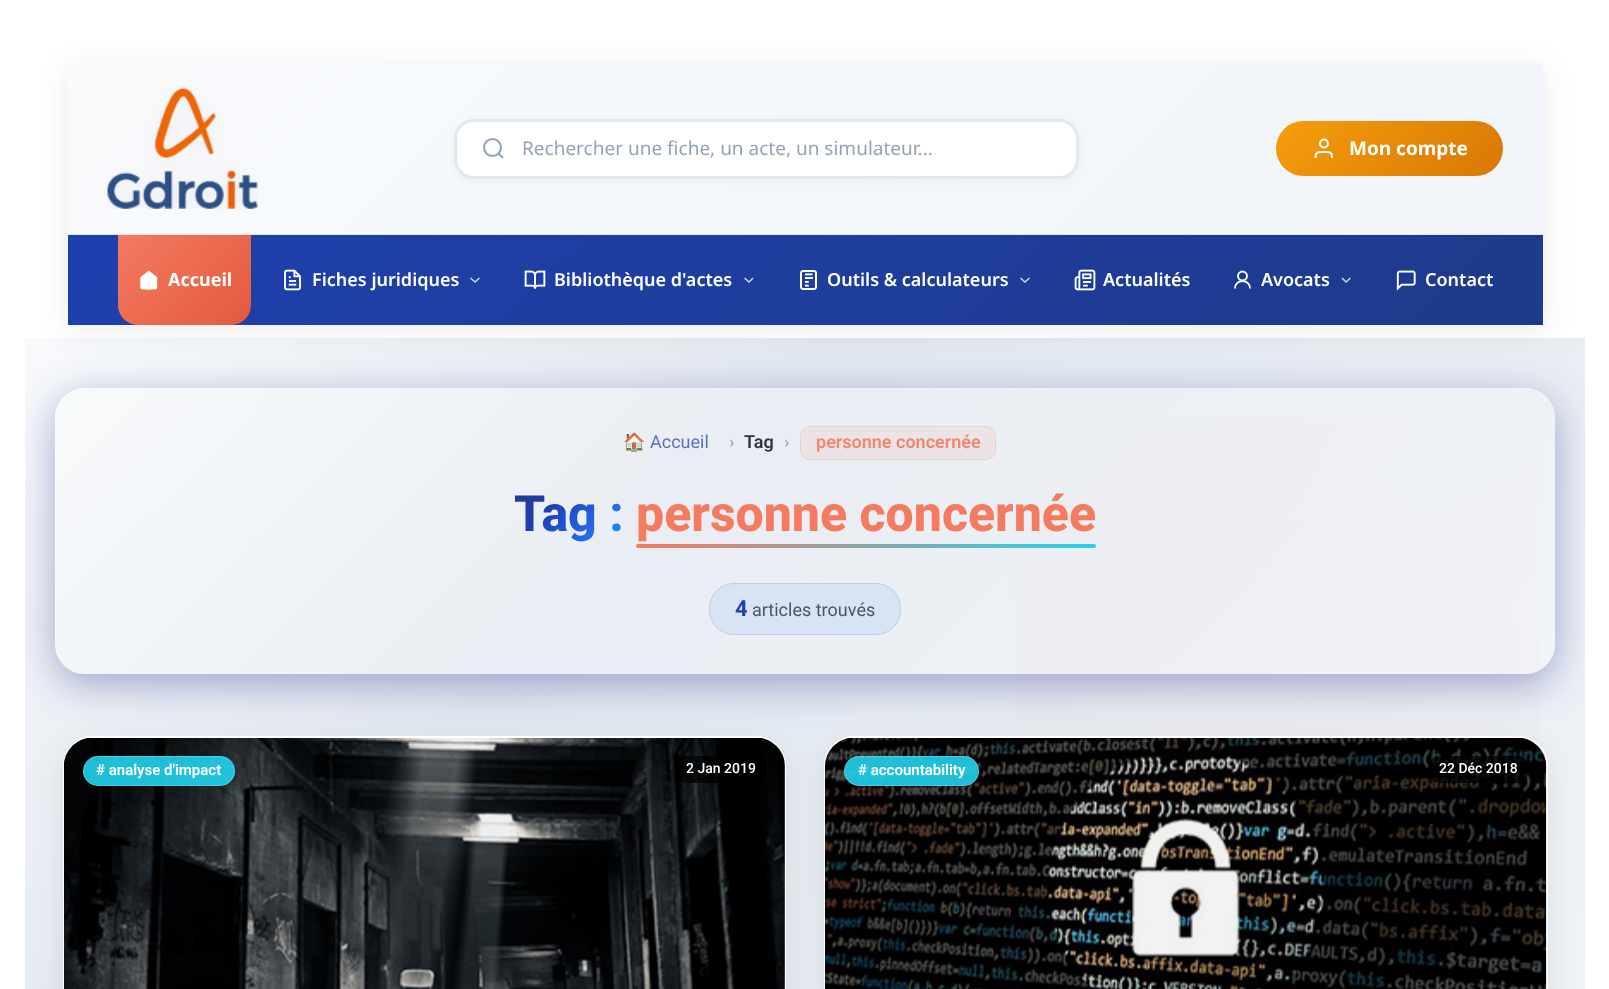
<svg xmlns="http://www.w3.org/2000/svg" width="1609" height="989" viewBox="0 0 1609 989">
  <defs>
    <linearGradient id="g1" gradientUnits="userSpaceOnUse" x1="-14" y1="376" x2="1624" y2="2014"><stop offset="0" stop-color="#f8fafc"/><stop offset="0.25" stop-color="#e2e8f0"/><stop offset="0.75" stop-color="#f1f5f9"/><stop offset="1" stop-color="#f8fafc"/></linearGradient>
    <linearGradient id="g2" gradientUnits="userSpaceOnUse" x1="393" y1="-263" x2="1217" y2="560"><stop offset="0" stop-color="#f8fafc"/><stop offset="1" stop-color="#f1f5f9"/></linearGradient>
    <linearGradient id="g3" gradientUnits="userSpaceOnUse" x1="1319" y1="78" x2="1460" y2="219"><stop offset="0" stop-color="#f59e0b"/><stop offset="1" stop-color="#d97706"/></linearGradient>
    <linearGradient id="g4" gradientUnits="userSpaceOnUse" x1="414" y1="-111" x2="1196" y2="671"><stop offset="0" stop-color="#1e40af"/><stop offset="1" stop-color="#1e3a8a"/></linearGradient>
    <linearGradient id="g5" gradientUnits="userSpaceOnUse" x1="128" y1="224" x2="240" y2="336"><stop offset="0" stop-color="#f47a60"/><stop offset="1" stop-color="#e25a3f"/></linearGradient>
    <radialGradient id="g6" gradientUnits="userSpaceOnUse" cx="1273" cy="681" r="1855"><stop offset="0" stop-color="#f47a60" stop-opacity="0.03"/><stop offset="0.5" stop-color="#f47a60" stop-opacity="0"/></radialGradient>
    <clipPath id="clip1"><path d="M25 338h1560v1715H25z"/></clipPath>
    <clipPath id="clip2"><path d="M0 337H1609V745H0ZM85 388H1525C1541.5 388 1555 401.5 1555 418V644C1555 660.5 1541.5 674 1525 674H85C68.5 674 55 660.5 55 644V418C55 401.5 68.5 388 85 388Z" clip-rule="evenodd"/></clipPath>
    <linearGradient id="g7" gradientUnits="userSpaceOnUse" x1="527" y1="472" x2="611" y2="556"><stop offset="0" stop-color="#1e3a8a"/><stop offset="0.35" stop-color="#1e40af"/><stop offset="0.7" stop-color="#2563eb"/><stop offset="1" stop-color="#0ea5e9"/></linearGradient>
    <linearGradient id="g8" gradientUnits="userSpaceOnUse" x1="636" y1="546" x2="1096" y2="546"><stop offset="0" stop-color="#f47a60"/><stop offset="1" stop-color="#22d3ee"/></linearGradient>
  </defs>
  <rect width="100%" height="100%" fill="#fff"/>
  <path d="M25 338h1560v651H25z" fill="url(#g1)"/>
  <path d="M68 68h1475v262H68z" fill="#00000014" filter="blur(15px)"/>
  <path d="M68 63h1475v171H68z" fill="url(#g2)"/>
  <path d="M68 234h1475v1H68z" fill="#e2e8f0"/>
  <image x="107" y="87" width="151" height="122" href="img/1.png"/>
  <rect x="454" y="121" width="625" height="60" rx="20" fill="#0000000a" filter="blur(5px)"/>
  <rect x="455.5" y="120.5" width="622" height="57" rx="18.5" fill="#fff" stroke="#e2e8f0" stroke-width="3"/>
  <circle cx="492.5" cy="147.5" r="8.5" fill="none" stroke="#94a3b8" stroke-width="2.1"/>
  <path d="M503 158L498.5 153.5" fill="none" stroke="#94a3b8" stroke-width="2.1"/>
  <rect x="1276" y="121" width="227" height="55" rx="27.5" fill="url(#g3)"/>
  <path d="M1332 158C1332 151.5 1329.5 152 1324 152C1318 152 1315.5 151.5 1315.5 158" fill="none" stroke="#fff" stroke-width="2.1"/>
  <circle cx="1324" cy="143.5" r="4" fill="none" stroke="#fff" stroke-width="2.1"/>
  <path d="M68 235h1475v90H68z" fill="url(#g4)"/>
  <path d="M118 235H251V305C251 316 242 325 231 325H138C127 325 118 316 118 305Z" fill="url(#g5)"/>
  <image x="140" y="270" width="18" height="20" href="img/2.png"/>
  <image x="284" y="269" width="17" height="22" href="img/3.png"/>
  <path d="M470.5 278L475 282L479.5 278" fill="none" stroke="#d2d8ed" stroke-width="1.5"/>
  <image x="524" y="270" width="22" height="19" href="img/4.png"/>
  <path d="M744.5 278L749 282L753 278" fill="none" stroke="#d2d8ec" stroke-width="1.5"/>
  <image x="800" y="270" width="17" height="20" href="img/5.png"/>
  <path d="M1020.5 278L1025 282L1029.5 278" fill="none" stroke="#d2d8ea" stroke-width="1.5"/>
  <image x="1074" y="269" width="22" height="22" href="img/6.png"/>
  <circle cx="1242.5" cy="276" r="4.5" fill="none" stroke="#fff" stroke-width="1.9"/>
  <path d="M1250 288.5C1250 278.5 1235 278.5 1235 288.5" fill="none" stroke="#fff" stroke-width="1.9"/>
  <path d="M1342 278L1346 282L1350.5 278" fill="none" stroke="#d2d8e9" stroke-width="1.5"/>
  <image x="1396" y="270" width="20" height="21" href="img/7.png"/>
  <path d="M1014 418h526v325H1014z" fill="url(#g6)"/>
  <g clip-path="url(#clip1)">
    <g clip-path="url(#clip2)">
      <rect x="55" y="398" width="1500" height="286" rx="30" fill="#1f26875e" filter="blur(20px)"/>
    </g>
  </g>
  <rect x="55" y="388" width="1500" height="286" rx="30" fill="#ffffff40"/>
  <rect x="55.5" y="388.5" width="1499" height="285" rx="29.5" fill="none" stroke="#ffffff4d"/>
  <rect x="800" y="426" width="196" height="34" rx="10" fill="#ebe3e6"/>
  <rect x="800.5" y="426.5" width="195" height="33" rx="9.5" fill="none" stroke="#f3866f33"/>
  <rect x="636" y="544" width="460" height="4" rx="2" fill="url(#g8)"/>
  <rect x="709" y="583" width="192" height="52" rx="25" fill="#d8e3f3"/>
  <rect x="709.5" y="583.5" width="191" height="51" rx="24.5" fill="none" stroke="#3b82f633"/>
  <rect x="63" y="746" width="723" height="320" rx="30" fill="#00000014" filter="blur(15.5px)"/>
  <rect x="63" y="736" width="723" height="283" rx="30" fill="#fffffff2"/>
  <image x="64" y="738" width="721" height="251" href="img/8.png"/>
  <rect x="83" y="756" width="152" height="30" rx="15" fill="#22d3eee6"/>
  <rect x="83.5" y="756.5" width="151" height="29" rx="14.5" fill="none" stroke="#ffffff33"/>
  <rect x="676" y="756" width="90" height="27" rx="10" fill="#000000b3"/>
  <rect x="824" y="746" width="724" height="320" rx="30" fill="#00000014" filter="blur(15.5px)"/>
  <rect x="824" y="736" width="724" height="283" rx="30" fill="#fffffff2"/>
  <image x="825" y="738" width="722" height="251" href="img/9.png"/>
  <rect x="844" y="756" width="135" height="30" rx="15" fill="#22d3eee6"/>
  <rect x="844.5" y="756.5" width="134" height="29" rx="14.5" fill="none" stroke="#ffffff33"/>
  <rect x="1429" y="756" width="99" height="27" rx="10" fill="#000000b3"/>
  <text x="522" y="155" font-family="Noto Sans" font-size="19" fill="#94a3b8">Rechercher une fiche, un acte, un simulateur...</text>
  <text x="1349" y="155" font-family="Noto Sans" font-size="19" font-weight="bold" fill="#fff">Mon compte</text>
  <text x="168" y="286" font-family="Noto Sans" font-size="18" font-weight="bold" fill="#fff">Accueil</text>
  <g font-family="Noto Sans" font-size="18" font-weight="600" fill="#fff">
    <text x="312" y="286">Fiches juridiques</text>
    <text x="554" y="286">Bibliothèque d'actes</text>
    <text x="827" y="286">Outils &amp; calculateurs</text>
    <text x="1103" y="286">Actualités</text>
    <text x="1261" y="286">Avocats</text>
    <text x="1425" y="286">Contact</text>
  </g>
  <text x="623" y="448" font-family="Noto Color Emoji" font-size="18" fill="#5771c3">🏠</text>
  <text x="650" y="448" font-family="Roboto" font-size="18" fill="#5771c3">Accueil</text>
  <text x="729" y="448" font-family="Roboto" font-size="18" font-weight="600" fill="#aaadb1">›</text>
  <text x="744" y="448" font-family="Roboto" font-size="18" font-weight="600" fill="#2f3440">Tag</text>
  <text x="784" y="448" font-family="Roboto" font-size="18" font-weight="600" fill="#aaadb1">›</text>
  <text x="816" y="448" font-family="Roboto" font-size="18" font-weight="600" fill="#f3866f">personne concernée</text>
  <text x="514" y="531" font-family="Roboto" font-size="50" font-weight="800" fill="url(#g7)">Tag :</text>
  <text x="636" y="531" font-family="Roboto" font-size="50" font-weight="800" fill="#f47a60">personne concernée</text>
  <text x="735" y="616" font-family="Roboto" font-size="22" font-weight="bold" fill="#1e40af">4</text>
  <text x="752" y="616" font-family="Roboto" font-size="18" fill="#4a5568">articles trouvés</text>
  <text x="96" y="775" font-family="Roboto" font-size="15" font-weight="600" fill="#fff"># analyse d'impact</text>
  <text x="686" y="773" font-family="Roboto" font-size="14" font-weight="500" fill="#fff">2 Jan 2019</text>
  <text x="858" y="775" font-family="Roboto" font-size="15" font-weight="600" fill="#fff"># accountability</text>
  <text x="1439" y="773" font-family="Roboto" font-size="14" font-weight="500" fill="#fff">22 Déc 2018</text>
</svg>
